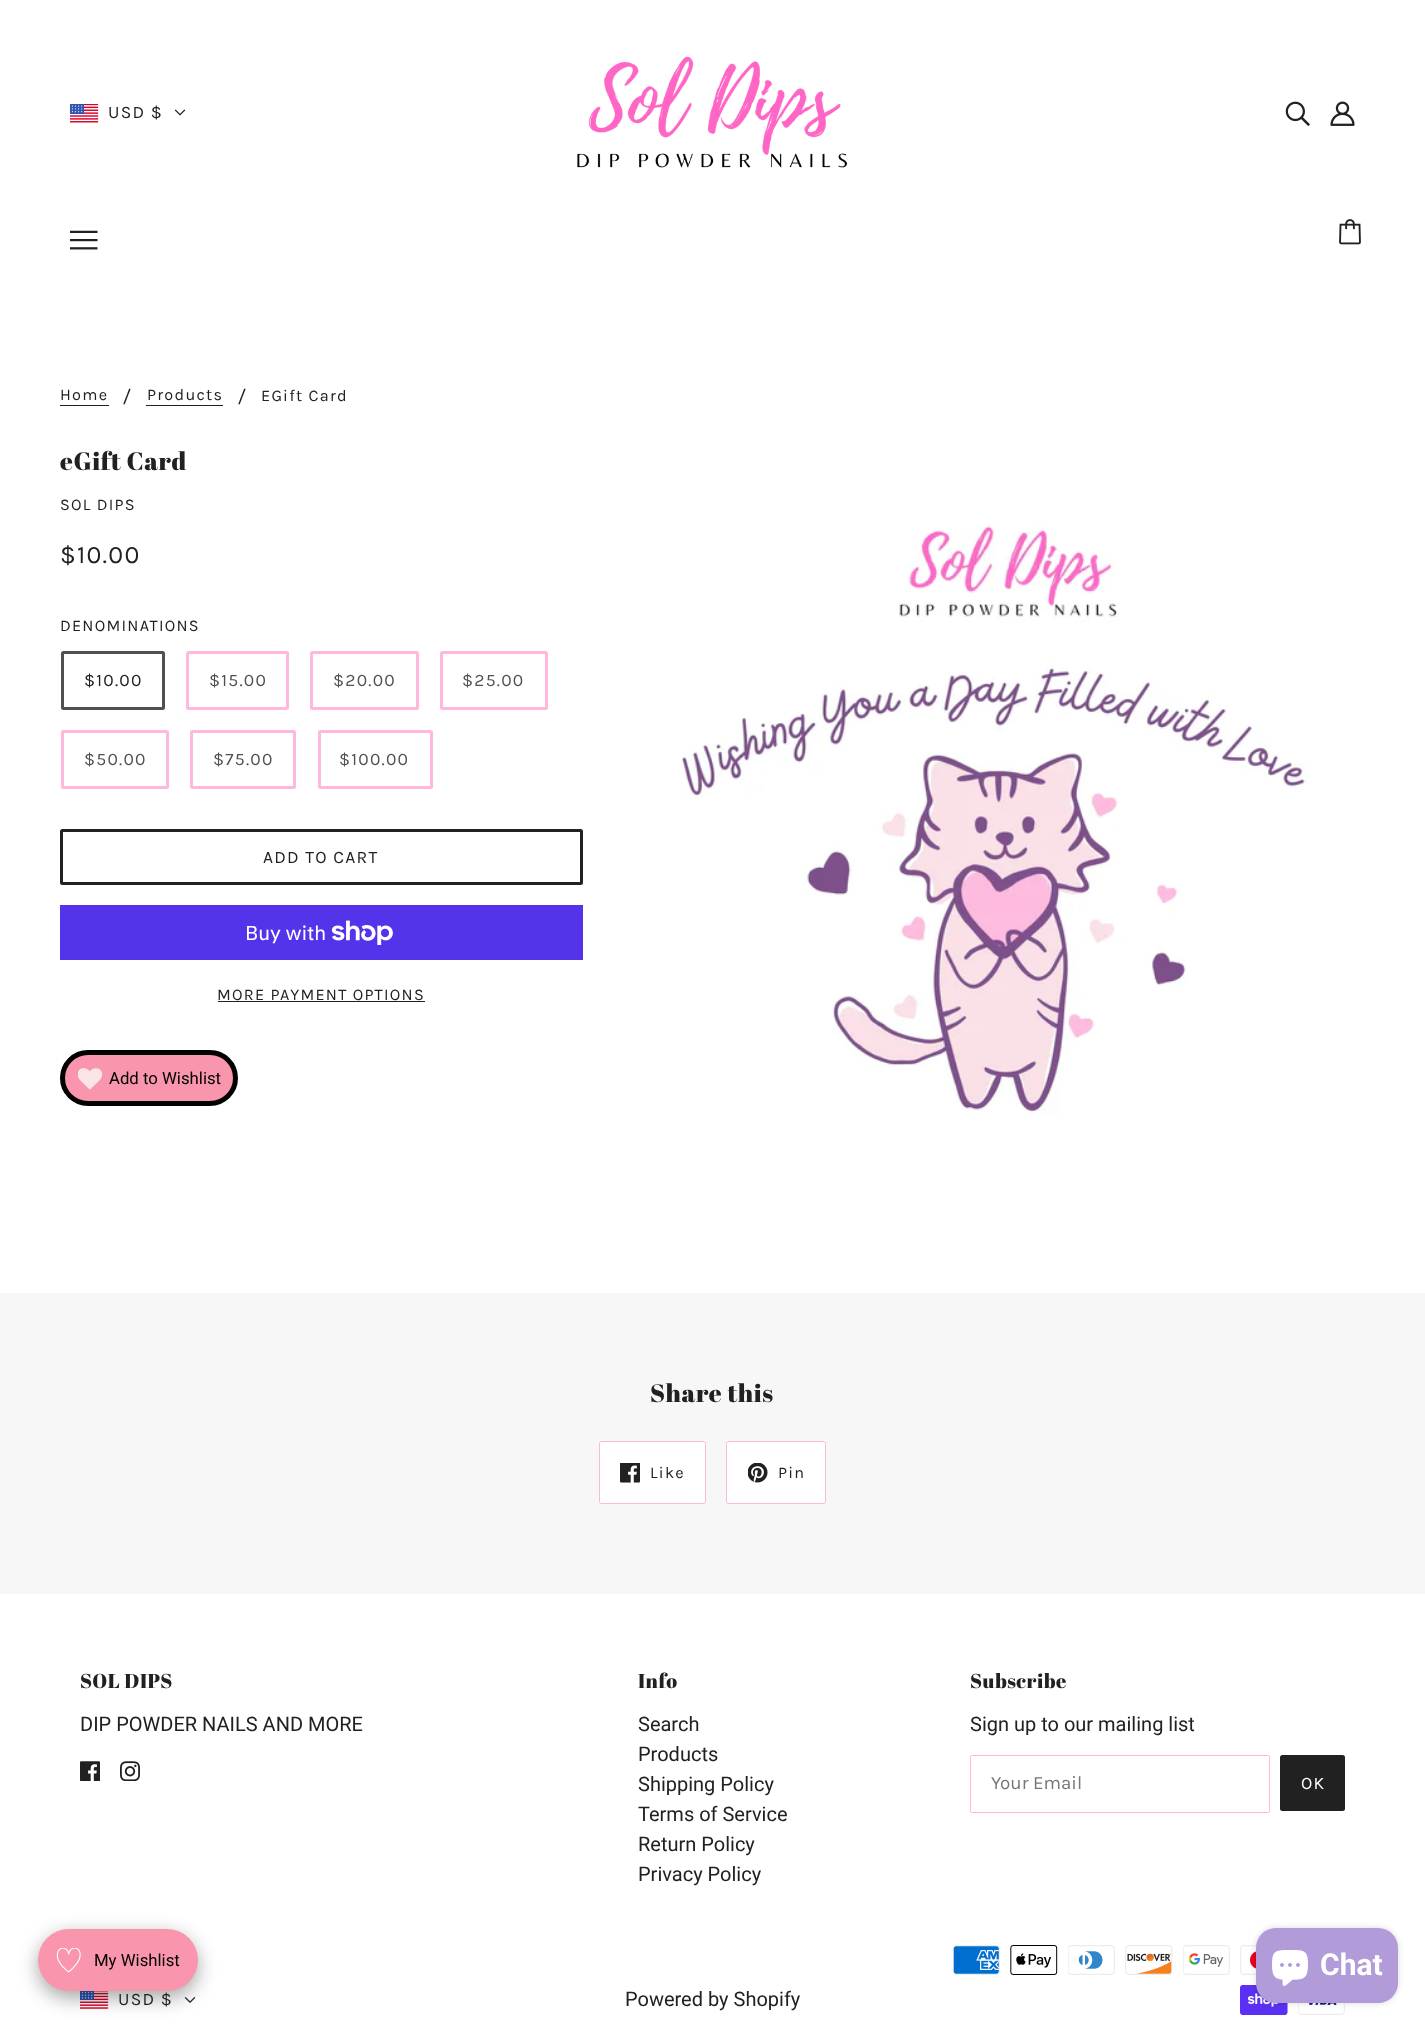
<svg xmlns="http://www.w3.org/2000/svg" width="1425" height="2028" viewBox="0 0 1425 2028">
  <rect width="100%" height="100%" fill="#fff"/>
  <image x="70" y="104" width="29" height="19" href="img/1.png"/>
  <image x="174" y="109" width="12" height="7" href="img/2.png"/>
  <image x="577" y="56" width="271" height="112" href="img/3.png"/>
  <image x="1285" y="101" width="25" height="25" href="img/4.png"/>
  <image x="1330" y="101" width="25" height="25" href="img/5.png"/>
  <image x="70" y="230" width="28" height="20" href="img/6.png"/>
  <image x="1339" y="219" width="22" height="26" href="img/7.png"/>
  <path d="M60 405h49v1H60z" fill="#212121"/>
  <path d="M146 405h77v1H146z" fill="#212121"/>
  <rect x="62.5" y="652.5" width="101" height="56" rx="1" fill="none" stroke="#515151" stroke-width="3"/>
  <rect x="187.5" y="652.5" width="100" height="56" rx="1" fill="none" stroke="#ffb7dd" stroke-width="3"/>
  <rect x="311.5" y="652.5" width="106" height="56" rx="1" fill="none" stroke="#ffb7dd" stroke-width="3"/>
  <rect x="441.5" y="652.5" width="105" height="56" rx="1" fill="none" stroke="#ffb7dd" stroke-width="3"/>
  <rect x="62.5" y="731.5" width="105" height="56" rx="1" fill="none" stroke="#ffb7dd" stroke-width="3"/>
  <rect x="191.5" y="731.5" width="103" height="56" rx="1" fill="none" stroke="#ffb7dd" stroke-width="3"/>
  <rect x="319.5" y="731.5" width="112" height="56" rx="1" fill="none" stroke="#ffb7dd" stroke-width="3"/>
  <image x="681" y="523" width="626" height="593" href="img/8.png"/>
  <rect x="61.5" y="830.5" width="520" height="53" rx="1" fill="none" stroke="#212121" stroke-width="3"/>
  <path d="M60 905h523v55H60z" fill="#5433eb"/>
  <image x="331" y="920" width="62" height="25" href="img/9.png"/>
  <path d="M218 1001h207v1H218z" fill="#212121"/>
  <rect x="62.5" y="1052.5" width="173" height="51" rx="25.5" fill="#f996ae" stroke="#000" stroke-width="5"/>
  <image x="78" y="1068" width="25" height="22" href="img/10.png"/>
  <path d="M0 1293h1425v301H0z" fill="#f7f7f7"/>
  <rect x="599.5" y="1441.5" width="106" height="62" rx="2" fill="#fff" stroke="#ffb7dd"/>
  <image x="620" y="1463" width="20" height="20" href="img/11.png"/>
  <rect x="726.5" y="1441.5" width="99" height="62" rx="2" fill="#fff" stroke="#ffb7dd"/>
  <image x="748" y="1463" width="20" height="20" href="img/12.png"/>
  <image x="80" y="1761" width="20" height="20" href="img/13.png"/>
  <image x="120" y="1761" width="20" height="20" href="img/14.png"/>
  <rect x="970.5" y="1755.5" width="299" height="57" rx="2" fill="none" stroke="#ffb7dd"/>
  <rect x="1280" y="1755" width="65" height="56" rx="2.5" fill="#212121"/>
  <image x="80" y="1991" width="29" height="18" href="img/15.png"/>
  <image x="184" y="1997" width="12" height="6" href="img/16.png"/>
  <image x="953" y="1945" width="47" height="30" href="img/17.png"/>
  <image x="1010" y="1945" width="48" height="30" href="img/18.png"/>
  <image x="1068" y="1945" width="47" height="30" href="img/19.png"/>
  <image x="1125" y="1945" width="48" height="30" href="img/20.png"/>
  <image x="1183" y="1945" width="47" height="30" href="img/21.png"/>
  <image x="1240" y="1945" width="17" height="30" href="img/22.png"/>
  <image x="1240" y="1985" width="48" height="30" href="img/23.png"/>
  <image x="1298" y="2003" width="47" height="12" href="img/24.png"/>
  <rect x="1256" y="1928" width="142" height="75" rx="20" fill="#00000026" filter="blur(3px)"/>
  <rect x="1256" y="1928" width="142" height="75" rx="20" fill="#b19cd9"/>
  <image x="1272" y="1950" width="36" height="36" href="img/25.png"/>
  <rect x="38" y="1935" width="160" height="63" rx="31.5" fill="#00000059" filter="blur(9.5px)"/>
  <rect x="38" y="1929" width="160" height="62" rx="31" fill="#f996ae"/>
  <image x="56" y="1948" width="25" height="25" href="img/26.png"/>
  <text x="108" y="118" font-family="Karla" font-size="17.5" letter-spacing="1.25" fill="#212121">USD $</text>
  <text x="60" y="400" font-family="Karla" font-size="16.25" letter-spacing="1.25" fill="#212121">Home</text>
  <text x="123" y="403" font-family="Roboto" font-size="20" fill="#212121">/</text>
  <text x="147" y="400" font-family="Karla" font-size="16.25" letter-spacing="1.25" fill="#212121">Products</text>
  <text x="238" y="403" font-family="Roboto" font-size="20" fill="#212121">/</text>
  <text x="261" y="401" font-family="Karla" font-size="16.25" letter-spacing="1.25" fill="#212121">EGift Card</text>
  <text x="60" y="470" font-family="Abril Fatface" font-size="25" letter-spacing="0.6" fill="#212121">eGift Card</text>
  <text x="60" y="510" font-family="Karla" font-size="16.25" letter-spacing="1.25" fill="#212121">SOL DIPS</text>
  <text x="60" y="563" font-family="Karla" font-size="25" letter-spacing="1.25" fill="#212121">$10.00</text>
  <text x="60" y="631" font-family="Karla" font-size="16.25" letter-spacing="1.25" fill="#212121">DENOMINATIONS</text>
  <text x="84" y="686" font-family="Karla" font-size="17.5" letter-spacing="1.25" fill="#212121">$10.00</text>
  <g font-family="Karla" font-size="17.5" letter-spacing="1.25" fill="#515151">
    <text x="209" y="686">$15.00</text>
    <text x="333" y="686">$20.00</text>
    <text x="462" y="686">$25.00</text>
    <text x="84" y="765">$50.00</text>
    <text x="213" y="765">$75.00</text>
    <text x="339" y="765">$100.00</text>
  </g>
  <text x="263" y="863" font-family="Karla" font-size="17.5" letter-spacing="1.25" fill="#212121">ADD TO CART</text>
  <text x="245" y="940" font-family="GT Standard" font-size="20" fill="#fff">Buy with</text>
  <text x="217" y="1000" font-family="Karla" font-size="16.25" letter-spacing="1.25" fill="#212121">MORE PAYMENT OPTIONS</text>
  <text x="109" y="1084" font-family="Roboto" font-size="16.75" fill="#000">Add to Wishlist</text>
  <text x="650" y="1402" font-family="Abril Fatface" font-size="25" letter-spacing="0.6" fill="#212121">Share this</text>
  <g font-family="Karla" font-size="16.25" letter-spacing="1.25" fill="#212121">
    <text x="650" y="1478">Like</text>
    <text x="778" y="1478">Pin</text>
  </g>
  <text x="80" y="1688" font-family="Abril Fatface" font-size="20" letter-spacing="0.5" fill="#212121">SOL DIPS</text>
  <text x="80" y="1731" font-family="Roboto" font-size="20" fill="#212121">DIP POWDER NAILS AND MORE</text>
  <text x="638" y="1688" font-family="Abril Fatface" font-size="20" letter-spacing="0.5" fill="#212121">Info</text>
  <g font-family="Roboto" font-size="20" fill="#212121">
    <text x="638" y="1731">Search</text>
    <text x="638" y="1761">Products</text>
    <text x="638" y="1791">Shipping Policy</text>
    <text x="638" y="1821">Terms of Service</text>
    <text x="638" y="1851">Return Policy</text>
    <text x="638" y="1881">Privacy Policy</text>
  </g>
  <text x="970" y="1688" font-family="Abril Fatface" font-size="20" letter-spacing="0.5" fill="#212121">Subscribe</text>
  <text x="970" y="1731" font-family="Roboto" font-size="20" fill="#212121">Sign up to our mailing list</text>
  <text x="991" y="1789" font-family="Karla" font-size="18.75" fill="#757575">Your Email</text>
  <text x="1301" y="1789" font-family="Karla" font-size="17.5" letter-spacing="1.25" fill="#fff">OK</text>
  <text x="118" y="2005" font-family="Karla" font-size="17.5" letter-spacing="1.25" fill="#212121">USD $</text>
  <text x="625" y="2006" font-family="Roboto" font-size="20" fill="#212121">Powered by Shopify</text>
  <text x="1320" y="1975" font-family="Roboto" font-size="30" font-weight="bold" fill="#fff">Chat</text>
  <text x="94" y="1966" font-family="Roboto" font-size="16.75" fill="#000">My Wishlist</text>
</svg>
